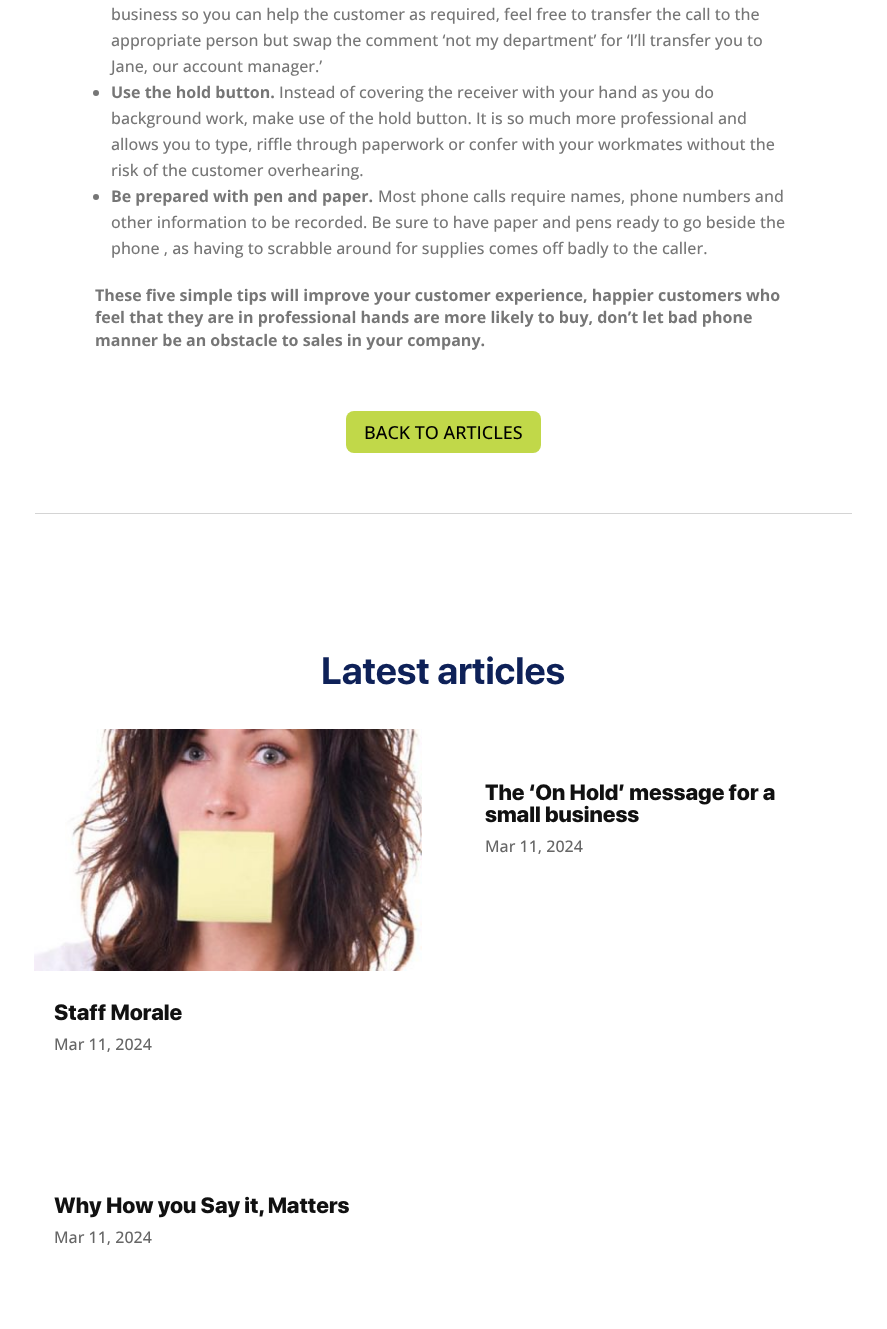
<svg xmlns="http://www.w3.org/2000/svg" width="887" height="1329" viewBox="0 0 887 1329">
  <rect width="100%" height="100%" fill="#fff"/>
  <circle cx="96" cy="93" r="3" fill="#767676"/>
  <circle cx="96" cy="197" r="3" fill="#767676"/>
  <rect x="346" y="411" width="195" height="42" rx="8" fill="#c1d849"/>
  <path d="M35 513h817v1H35z" fill="#d4d4d4"/>
  <image x="34" y="729" width="388" height="242" href="img/1.png"/>
  <g font-family="Open Sans" font-size="16" font-weight="500" fill="#767676">
    <text x="111" y="20">business so you can help the customer as required, feel free to transfer the call to the</text>
    <text x="111" y="46">appropriate person but swap the comment ‘not my department’ for ‘I’ll transfer you to</text>
    <text x="111" y="72">Jane, our account manager.’</text>
  </g>
  <text x="111" y="98" font-family="Open Sans" font-size="16" font-weight="bold" fill="#767676">Use the hold button.</text>
  <g font-family="Open Sans" font-size="16" font-weight="500" fill="#767676">
    <text x="279" y="98">Instead of covering the receiver with your hand as you do</text>
    <text x="111" y="124">background work, make use of the hold button. It is so much more professional and</text>
    <text x="111" y="150">allows you to type, riffle through paperwork or confer with your workmates without the</text>
    <text x="111" y="176">risk of the customer overhearing.</text>
  </g>
  <text x="111" y="202" font-family="Open Sans" font-size="16" font-weight="bold" fill="#767676">Be prepared with pen and paper.</text>
  <g font-family="Open Sans" font-size="16" font-weight="500" fill="#767676">
    <text x="378" y="202">Most phone calls require names, phone numbers and</text>
    <text x="111" y="228">other information to be recorded. Be sure to have paper and pens ready to go beside the</text>
    <text x="111" y="254">phone , as having to scrabble around for supplies comes off badly to the caller.</text>
  </g>
  <g font-family="Open Sans" font-size="16" font-weight="bold" fill="#767676">
    <text x="95" y="301">These five simple tips will improve your customer experience, happier customers who</text>
    <text x="95" y="323">feel that they are in professional hands are more likely to buy, don’t let bad phone</text>
    <text x="95" y="346">manner be an obstacle to sales in your company.</text>
  </g>
  <text x="364" y="439" font-family="Open Sans" font-size="18" font-weight="500" fill="#000">BACK TO ARTICLES</text>
  <text x="321" y="684" font-family="SF Pro Display" font-size="38" font-weight="bold" fill="#0e2158">Latest articles</text>
  <g font-family="SF Pro Display" font-size="22" font-weight="900" fill="#111">
    <text x="485" y="800">The ‘On Hold’ message for a</text>
    <text x="485" y="822">small business</text>
  </g>
  <text x="485" y="852" font-family="Open Sans" font-size="16" font-weight="500" fill="#666">Mar 11, 2024</text>
  <text x="54" y="1020" font-family="SF Pro Display" font-size="22" font-weight="900" fill="#111">Staff Morale</text>
  <text x="54" y="1050" font-family="Open Sans" font-size="16" font-weight="500" fill="#666">Mar 11, 2024</text>
  <text x="54" y="1213" font-family="SF Pro Display" font-size="22" font-weight="900" fill="#111">Why How you Say it, Matters</text>
  <text x="54" y="1243" font-family="Open Sans" font-size="16" font-weight="500" fill="#666">Mar 11, 2024</text>
</svg>
